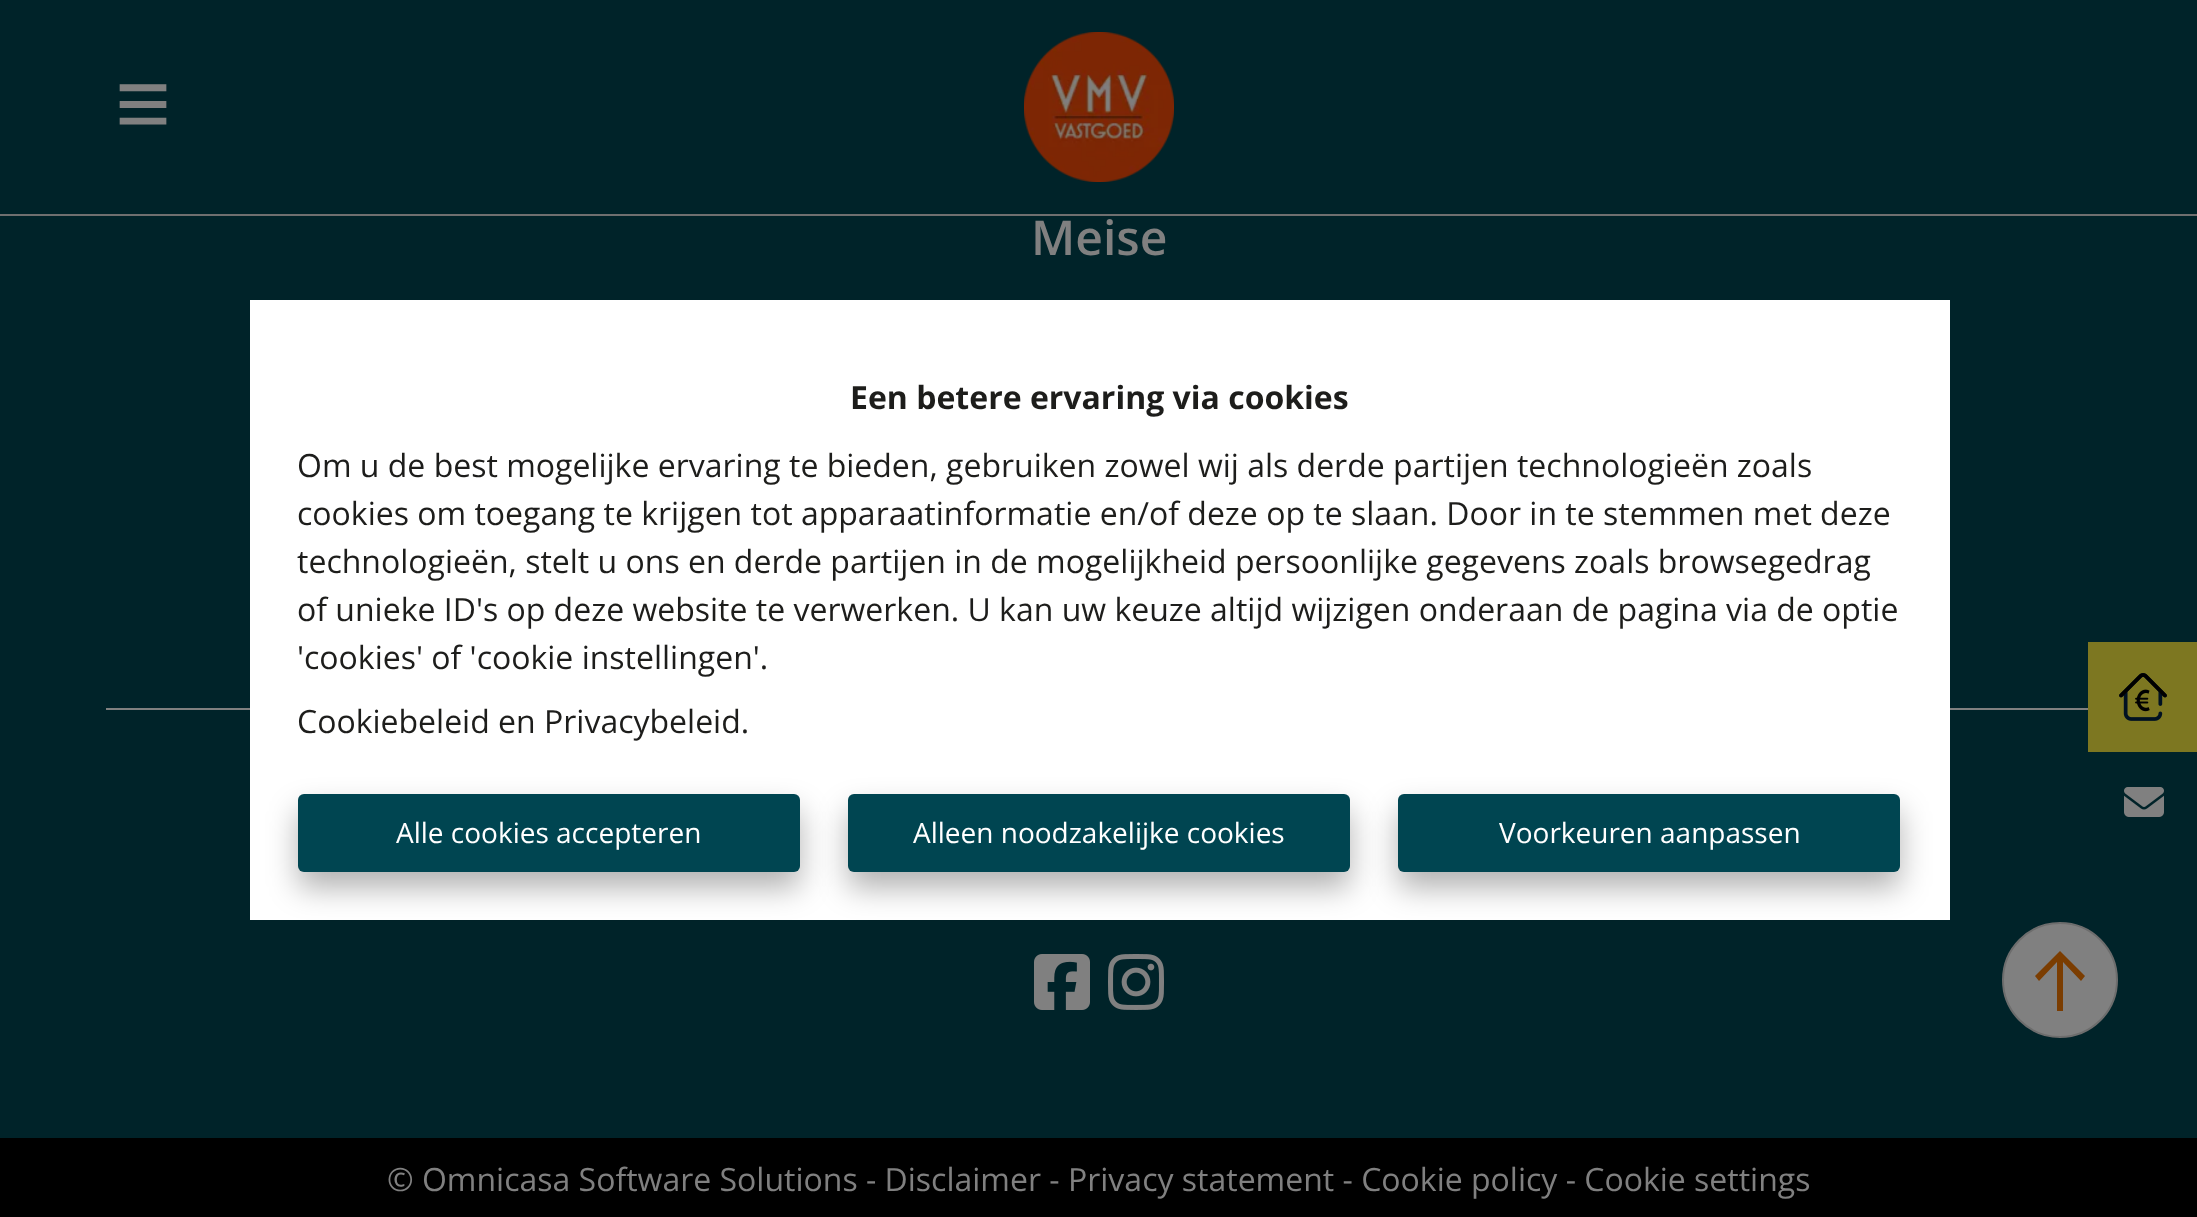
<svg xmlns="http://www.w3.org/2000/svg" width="2197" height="1217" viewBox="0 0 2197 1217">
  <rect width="100%" height="100%" fill="#002329"/>
  <path d="M0 214h2197v2H0z" fill="#6f6f6f"/>
  <image x="1024" y="32" width="150" height="150" href="img/1.png"/>
  <path d="M106 708h1986v2H106z" fill="#808080"/>
  <image x="1034" y="954" width="56" height="56" href="img/2.png"/>
  <image x="1108" y="954" width="56" height="56" href="img/3.png"/>
  <path d="M0 1138h2197v79H0z" fill="#000"/>
  <path d="M250 300h1700v620H250z" fill="#fff"/>
  <rect x="298" y="810" width="502" height="78" rx="6" fill="#0000004d" filter="blur(15px)"/>
  <rect x="298" y="794" width="502" height="78" rx="6" fill="#004551"/>
  <rect x="848" y="810" width="502" height="78" rx="6" fill="#0000004d" filter="blur(15px)"/>
  <rect x="848" y="794" width="502" height="78" rx="6" fill="#004551"/>
  <rect x="1398" y="810" width="502" height="78" rx="6" fill="#0000004d" filter="blur(15px)"/>
  <rect x="1398" y="794" width="502" height="78" rx="6" fill="#004551"/>
  <path d="M2088 642h109v110H2088z" fill="#7d7721"/>
  <image x="2119" y="673" width="48" height="48" href="img/4.png"/>
  <image x="2124" y="787" width="40" height="30" href="img/5.png"/>
  <circle cx="2060" cy="980" r="57" fill="#808080" stroke="#6d6d6d" stroke-width="2"/>
  <path d="M2057 962L2039 981L2035 976L2060 951L2085 976L2081 981L2063 962V1011H2057Z" fill="#7b3d01"/>
  <text x="115" y="136" font-family="Liberation Sans" font-size="96" fill="#808080">≡</text>
  <text x="1031" y="255" font-family="Open Sans" font-size="48" font-weight="600" fill="#808080">Meise</text>
  <text x="387" y="1191" font-family="Open Sans" font-size="32" fill="#808080">© Omnicasa Software Solutions - Disclaimer - Privacy statement - Cookie policy - Cookie settings</text>
  <text x="850" y="409" font-family="Open Sans" font-size="32" font-weight="bold" fill="#1d1d1b">Een betere ervaring via cookies</text>
  <g font-family="Open Sans" font-size="32" fill="#1d1d1b">
    <text x="297" y="477">Om u de best mogelijke ervaring te bieden, gebruiken zowel wij als derde partijen technologieën zoals</text>
    <text x="297" y="525">cookies om toegang te krijgen tot apparaatinformatie en/of deze op te slaan. Door in te stemmen met deze</text>
    <text x="297" y="573">technologieën, stelt u ons en derde partijen in de mogelijkheid persoonlijke gegevens zoals browsegedrag</text>
    <text x="297" y="621">of unieke ID's op deze website te verwerken. U kan uw keuze altijd wijzigen onderaan de pagina via de optie</text>
    <text x="297" y="669">'cookies' of 'cookie instellingen'.</text>
    <text x="297" y="733">Cookiebeleid en Privacybeleid.</text>
  </g>
  <g font-family="Open Sans" font-size="28" fill="#fff">
    <text x="396" y="843">Alle cookies accepteren</text>
    <text x="913" y="843">Alleen noodzakelijke cookies</text>
    <text x="1499" y="843">Voorkeuren aanpassen</text>
  </g>
</svg>
